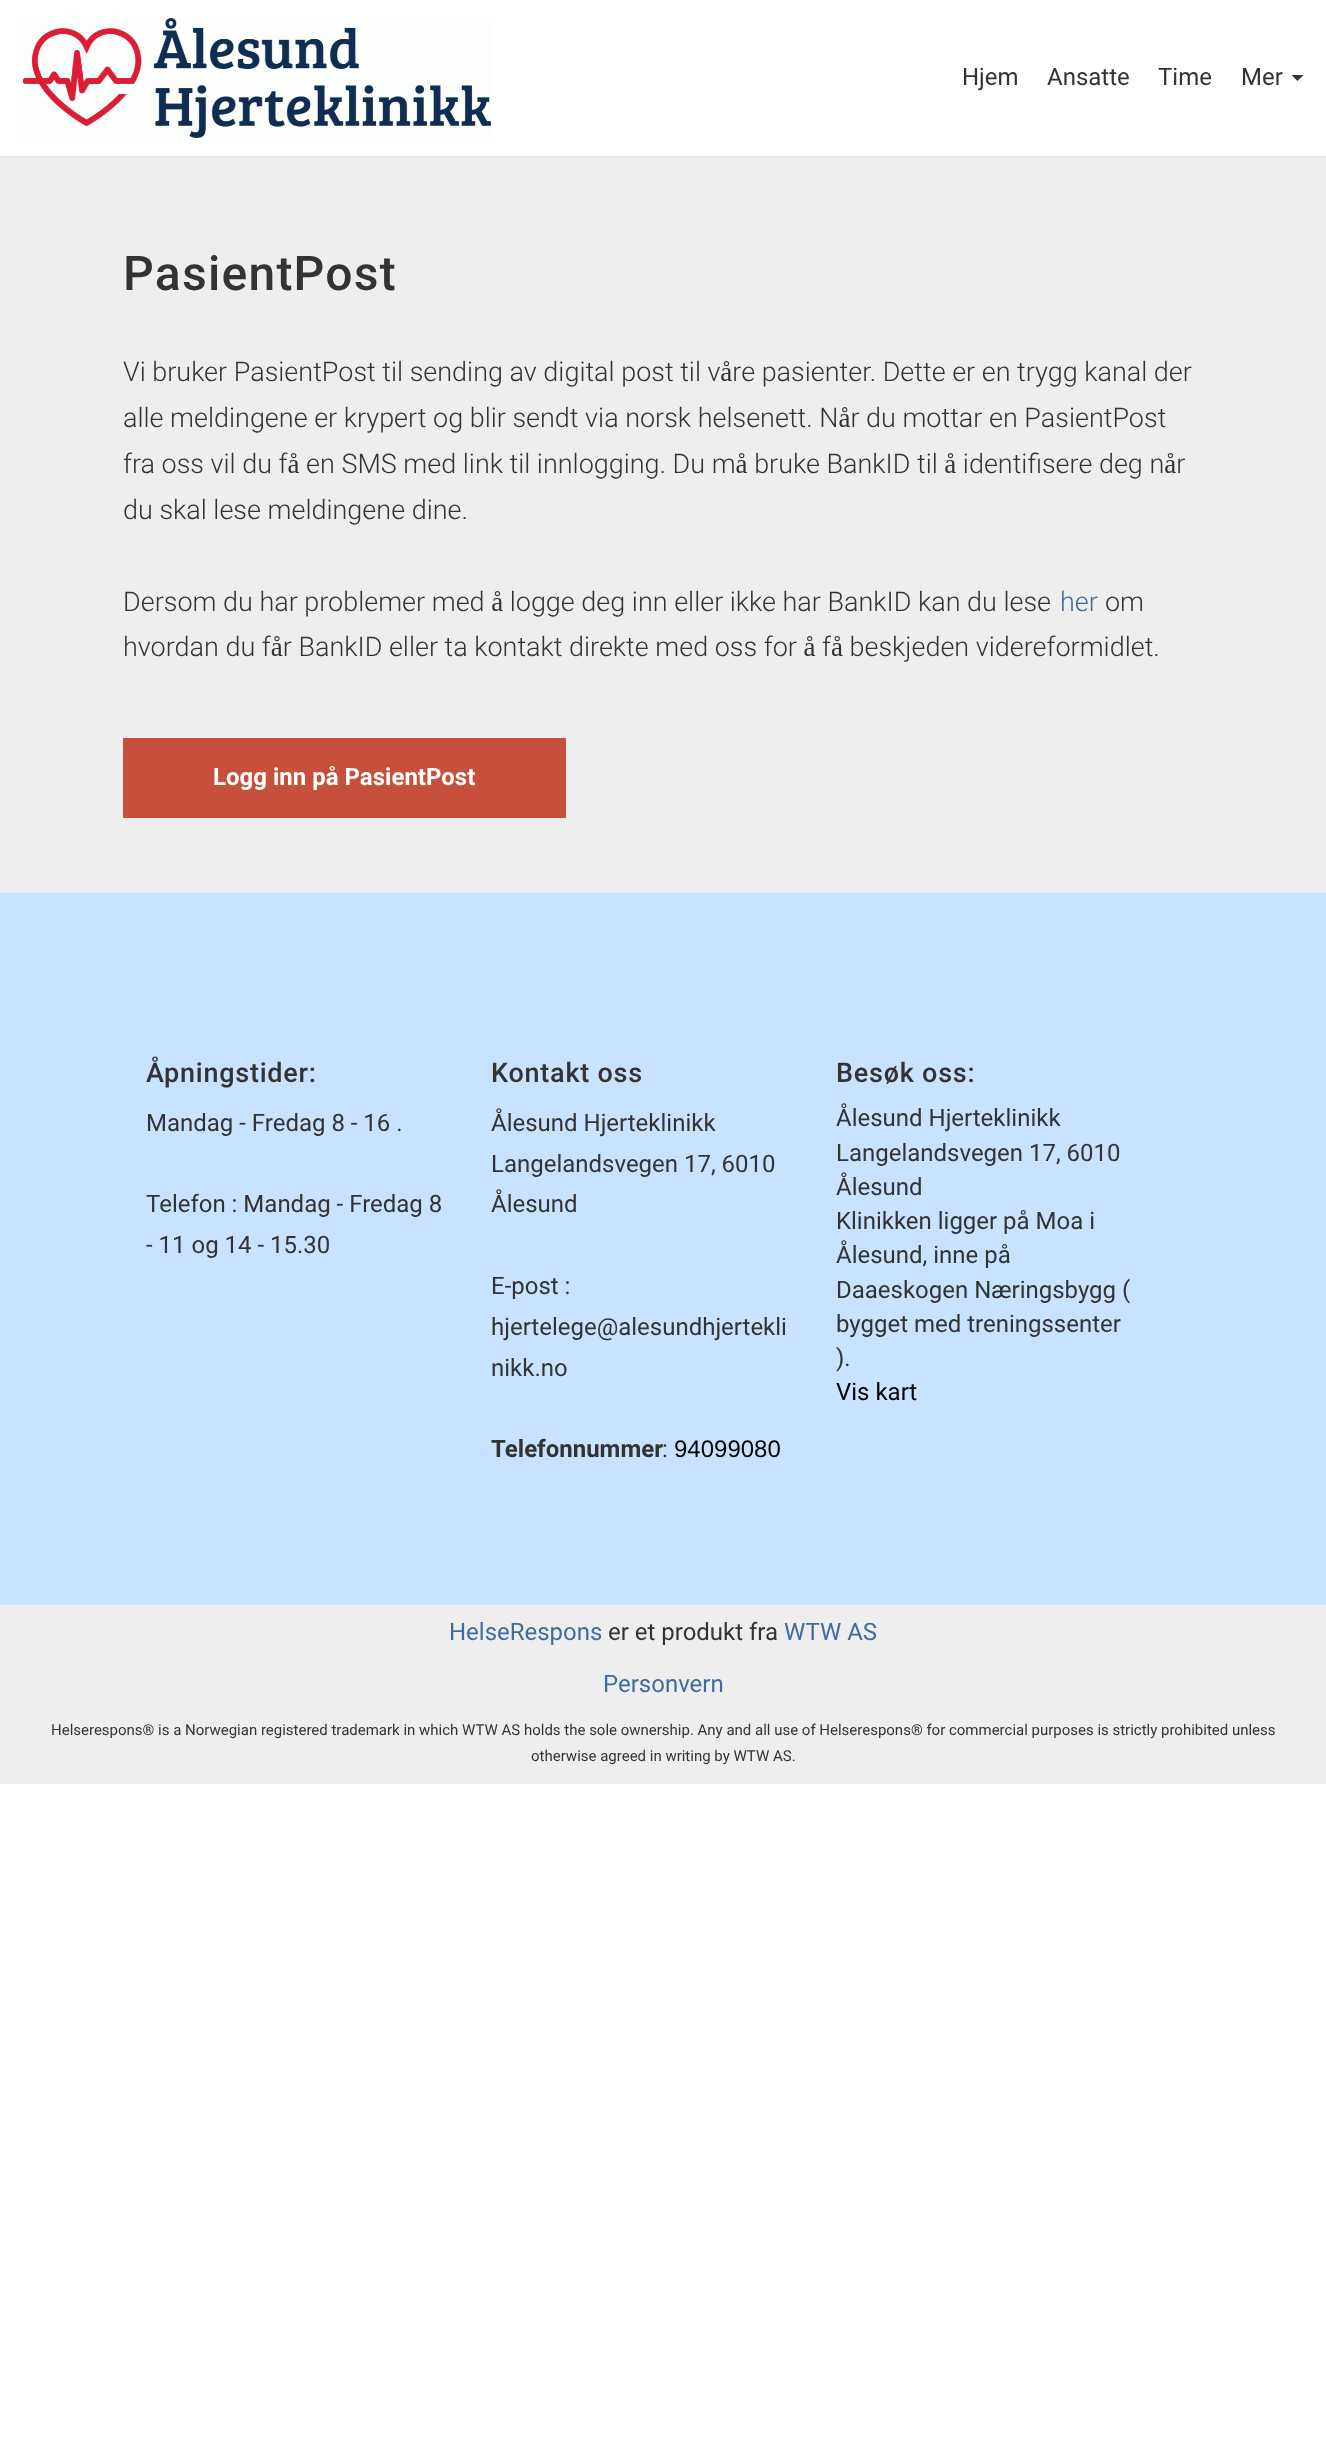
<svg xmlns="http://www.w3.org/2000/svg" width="1326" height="2452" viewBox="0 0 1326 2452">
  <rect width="100%" height="100%" fill="#fff"/>
  <path d="M0 156h1326v2H0z" fill="#e5e5e5"/>
  <image x="23" y="18" width="468" height="120" href="img/1.png"/>
  <path d="M1291.5 75H1303.5L1297.5 81Z" fill="#333"/>
  <path d="M0 158h1326v1626H0z" fill="#eee"/>
  <path d="M123 738h443v80H123z" fill="#c7503c"/>
  <path d="M0 893h1326v712H0z" fill="#c8e3ff"/>
  <g font-family="Roboto" font-size="24" fill="#333">
    <text x="962" y="85">Hjem</text>
    <text x="1047" y="85">Ansatte</text>
    <text x="1158" y="85">Time</text>
    <text x="1241" y="85">Mer</text>
  </g>
  <text x="123" y="290" font-family="Roboto" font-size="48" font-weight="500" letter-spacing="1.25" fill="#333">PasientPost</text>
  <g font-family="Roboto" font-size="27" font-weight="300" fill="#333">
    <text x="123" y="381">Vi bruker PasientPost til sending av digital post til våre pasienter. Dette er en trygg kanal der</text>
    <text x="123" y="427">alle meldingene er krypert og blir sendt via norsk helsenett. Når du mottar en PasientPost</text>
    <text x="123" y="473">fra oss vil du få en SMS med link til innlogging. Du må bruke BankID til å identifisere deg når</text>
    <text x="123" y="519">du skal lese meldingene dine.</text>
    <text x="123" y="611">Dersom du har problemer med å logge deg inn eller ikke har BankID kan du lese</text>
  </g>
  <text x="1060" y="611" font-family="Roboto" font-size="27" font-weight="300" fill="#406b9d">her</text>
  <g font-family="Roboto" font-size="27" font-weight="300" fill="#333">
    <text x="1105" y="611">om</text>
    <text x="123" y="656">hvordan du får BankID eller ta kontakt direkte med oss for å få beskjeden videreformidlet.</text>
  </g>
  <text x="213" y="785" font-family="Roboto" font-size="24" font-weight="bold" fill="#fff">Logg inn på PasientPost</text>
  <text x="146" y="1082" font-family="Roboto" font-size="27" font-weight="500" letter-spacing="0.75" fill="#333">Åpningstider:</text>
  <g font-family="Roboto" font-size="24" fill="#333">
    <text x="146" y="1131">Mandag - Fredag 8 - 16 .</text>
    <text x="146" y="1212">Telefon : Mandag - Fredag 8</text>
    <text x="146" y="1253">- 11 og 14 - 15.30</text>
  </g>
  <text x="491" y="1082" font-family="Roboto" font-size="27" font-weight="500" letter-spacing="0.75" fill="#333">Kontakt oss</text>
  <g font-family="Roboto" font-size="24" fill="#333">
    <text x="491" y="1131">Ålesund Hjerteklinikk</text>
    <text x="491" y="1172">Langelandsvegen 17, 6010</text>
    <text x="491" y="1212">Ålesund</text>
    <text x="491" y="1294">E-post :</text>
    <text x="491" y="1335">hjertelege@alesundhjertekli</text>
    <text x="491" y="1376">nikk.no</text>
  </g>
  <text x="491" y="1457" font-family="Roboto" font-size="24" font-weight="bold" fill="#333">Telefonnummer</text>
  <text x="662" y="1457" font-family="Roboto" font-size="24" fill="#333">:</text>
  <text x="674" y="1457" font-family="Liberation Sans" font-size="24" fill="#000">94099080</text>
  <text x="836" y="1082" font-family="Roboto" font-size="27" font-weight="500" letter-spacing="0.75" fill="#333">Besøk oss:</text>
  <g font-family="Roboto" font-size="24" fill="#333">
    <text x="836" y="1126">Ålesund Hjerteklinikk</text>
    <text x="836" y="1161">Langelandsvegen 17, 6010</text>
    <text x="836" y="1195">Ålesund</text>
    <text x="836" y="1229">Klinikken ligger på Moa i</text>
    <text x="836" y="1263">Ålesund, inne på</text>
    <text x="836" y="1298">Daaeskogen Næringsbygg (</text>
    <text x="836" y="1332">bygget med treningssenter</text>
    <text x="836" y="1366">).</text>
  </g>
  <text x="836" y="1400" font-family="Roboto" font-size="24" fill="#000">Vis kart</text>
  <text x="449" y="1640" font-family="Roboto" font-size="24" fill="#406b9d">HelseRespons</text>
  <text x="608" y="1640" font-family="Roboto" font-size="24" fill="#333">er et produkt fra</text>
  <g font-family="Roboto" font-size="24" fill="#406b9d">
    <text x="784" y="1640">WTW AS</text>
    <text x="603" y="1692">Personvern</text>
  </g>
  <g font-family="Roboto" font-size="15" fill="#333">
    <text x="51" y="1735">Helserespons® is a Norwegian registered trademark in which WTW AS holds the sole ownership. Any and all use of Helserespons® for commercial purposes is strictly prohibited unless</text>
    <text x="531" y="1761">otherwise agreed in writing by WTW AS.</text>
  </g>
</svg>
